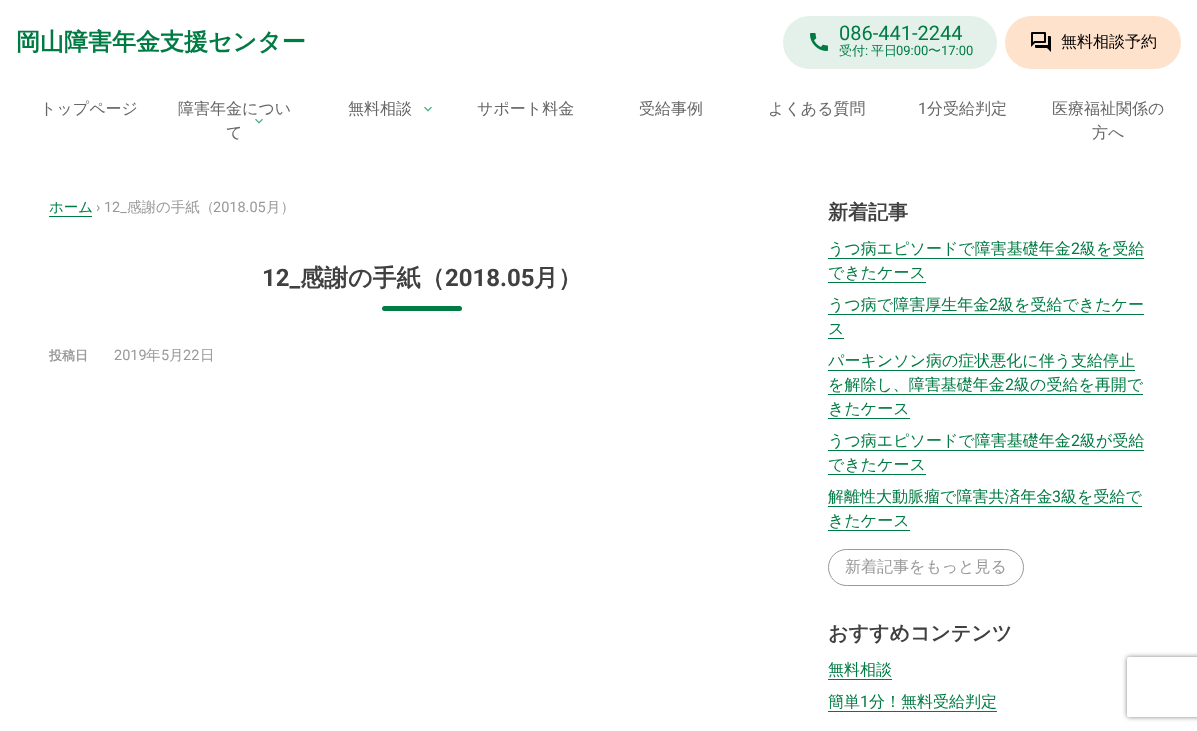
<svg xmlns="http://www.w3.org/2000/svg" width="1197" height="731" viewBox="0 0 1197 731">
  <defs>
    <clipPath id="clip1"><path d="M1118 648H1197V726H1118ZM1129 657H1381C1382 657 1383 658 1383 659V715C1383 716 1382 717 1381 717H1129C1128 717 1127 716 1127 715V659C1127 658 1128 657 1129 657Z" clip-rule="evenodd"/></clipPath>
  </defs>
  <rect width="100%" height="100%" fill="#fff"/>
  <rect x="783" y="16" width="214" height="53" rx="26.5" fill="#e4f1eb"/>
  <image x="810" y="33" width="18" height="18" href="img/1.png"/>
  <rect x="1005" y="16" width="176" height="53" rx="26.5" fill="#ffe2cc"/>
  <image x="1031" y="32" width="20" height="20" href="img/2.png"/>
  <image x="255" y="118" width="8" height="6" href="img/3.png"/>
  <image x="424" y="106" width="8" height="6" href="img/3.png"/>
  <path d="M49 216h43v1H49z" fill="#007b43"/>
  <rect x="382" y="306" width="80" height="5" rx="2.5" fill="#007b43"/>
  <path d="M828 258h316v1H828z" fill="#007b43"/>
  <path d="M828 282h98v1H828z" fill="#007b43"/>
  <path d="M828 314h316v1H828z" fill="#007b43"/>
  <path d="M828 338h16v1H828z" fill="#007b43"/>
  <path d="M828 370h307v1H828z" fill="#007b43"/>
  <path d="M828 394h315v1H828z" fill="#007b43"/>
  <path d="M828 418h82v1H828z" fill="#007b43"/>
  <path d="M828 450h316v1H828z" fill="#007b43"/>
  <path d="M828 474h98v1H828z" fill="#007b43"/>
  <path d="M828 506h314v1H828z" fill="#007b43"/>
  <path d="M828 530h82v1H828z" fill="#007b43"/>
  <rect x="828.5" y="549.5" width="195" height="36" rx="18" fill="none" stroke="#999"/>
  <path d="M828 679h64v1H828z" fill="#007b43"/>
  <path d="M828 711h169v1H828z" fill="#007b43"/>
  <g clip-path="url(#clip1)">
    <rect x="1127" y="657" width="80" height="60" rx="2" fill="#808080" filter="blur(2.5px)"/>
  </g>
  <text x="16" y="50" font-family="WenQuanYi Zen Hei" font-size="24" font-weight="bold" fill="#007b43">岡山障害年金支援センター</text>
  <text x="839" y="40" font-family="Roboto" font-size="20" fill="#007b43">086-441-2244</text>
  <text x="839" y="55" font-family="WenQuanYi Zen Hei" font-size="13" font-weight="500" fill="#007b43">受付</text>
  <text x="865" y="55" font-family="Roboto" font-size="13" fill="#007b43">:</text>
  <text x="871" y="55" font-family="WenQuanYi Zen Hei" font-size="13" font-weight="500" fill="#007b43">平日</text>
  <text x="896" y="55" font-family="Roboto" font-size="13" fill="#007b43">09:00</text>
  <text x="928" y="55" font-family="WenQuanYi Zen Hei" font-size="13" font-weight="500" fill="#007b43">〜</text>
  <text x="941" y="55" font-family="Roboto" font-size="13" fill="#007b43">17:00</text>
  <text x="1061" y="47" font-family="WenQuanYi Zen Hei" font-size="16" font-weight="500" fill="#000">無料相談予約</text>
  <g font-family="WenQuanYi Zen Hei" font-size="16" font-weight="500" fill="#666">
    <text x="40" y="114">トップページ</text>
    <text x="178" y="114">障害年金につい</text>
    <text x="226" y="138">て</text>
    <text x="348" y="114">無料相談</text>
    <text x="477" y="114">サポート料金</text>
    <text x="639" y="114">受給事例</text>
    <text x="768" y="114">よくある質問</text>
  </g>
  <text x="918" y="114" font-family="Roboto" font-size="16" fill="#666">1</text>
  <g font-family="WenQuanYi Zen Hei" font-size="16" font-weight="500" fill="#666">
    <text x="927" y="114">分受給判定</text>
    <text x="1052" y="114">医療福祉関係の</text>
    <text x="1092" y="138">方へ</text>
  </g>
  <text x="49" y="212" font-family="WenQuanYi Zen Hei" font-size="14.5" font-weight="500" fill="#007b43">ホーム</text>
  <text x="96" y="212" font-family="Roboto" font-size="14.5" fill="#999">› 12_</text>
  <text x="127" y="212" font-family="WenQuanYi Zen Hei" font-size="14.5" font-weight="500" fill="#999">感謝の手紙（</text>
  <text x="213" y="212" font-family="Roboto" font-size="14.5" fill="#999">2018.05</text>
  <text x="266" y="212" font-family="WenQuanYi Zen Hei" font-size="14.5" font-weight="500" fill="#999">月）</text>
  <text x="262" y="286" font-family="Roboto" font-size="24" font-weight="bold" fill="#404040">12_</text>
  <text x="300" y="286" font-family="WenQuanYi Zen Hei" font-size="24" font-weight="bold" fill="#404040">感謝の手紙（</text>
  <text x="445" y="286" font-family="Roboto" font-size="24" font-weight="bold" fill="#404040">2018.05</text>
  <text x="534" y="286" font-family="WenQuanYi Zen Hei" font-size="24" font-weight="bold" fill="#404040">月）</text>
  <text x="49" y="360" font-family="WenQuanYi Zen Hei" font-size="13" font-weight="bold" fill="#999">投稿日</text>
  <text x="114" y="360" font-family="Roboto" font-size="14.5" fill="#999">2019</text>
  <text x="146" y="360" font-family="WenQuanYi Zen Hei" font-size="14.5" font-weight="500" fill="#999">年</text>
  <text x="161" y="360" font-family="Roboto" font-size="14.5" fill="#999">5</text>
  <text x="169" y="360" font-family="WenQuanYi Zen Hei" font-size="14.5" font-weight="500" fill="#999">月</text>
  <text x="183" y="360" font-family="Roboto" font-size="14.5" fill="#999">22</text>
  <text x="200" y="360" font-family="WenQuanYi Zen Hei" font-size="14.5" font-weight="500" fill="#999">日</text>
  <text x="828" y="219" font-family="WenQuanYi Zen Hei" font-size="20" font-weight="bold" fill="#404040">新着記事</text>
  <text x="828" y="254" font-family="WenQuanYi Zen Hei" font-size="16" font-weight="500" fill="#007b43">うつ病エピソードで障害基礎年金</text>
  <text x="1071" y="254" font-family="Roboto" font-size="16" fill="#007b43">2</text>
  <g font-family="WenQuanYi Zen Hei" font-size="16" font-weight="500" fill="#007b43">
    <text x="1080" y="254">級を受給</text>
    <text x="828" y="278">できたケース</text>
    <text x="828" y="310">うつ病で障害厚生年金</text>
  </g>
  <text x="989" y="310" font-family="Roboto" font-size="16" fill="#007b43">2</text>
  <g font-family="WenQuanYi Zen Hei" font-size="16" font-weight="500" fill="#007b43">
    <text x="998" y="310">級を受給できたケー</text>
    <text x="828" y="334">ス</text>
    <text x="828" y="366">パーキンソン病の症状悪化に伴う支給停止</text>
    <text x="828" y="390">を解除し、障害基礎年金</text>
  </g>
  <text x="1005" y="390" font-family="Roboto" font-size="16" fill="#007b43">2</text>
  <g font-family="WenQuanYi Zen Hei" font-size="16" font-weight="500" fill="#007b43">
    <text x="1014" y="390">級の受給を再開で</text>
    <text x="828" y="414">きたケース</text>
    <text x="828" y="446">うつ病エピソードで障害基礎年金</text>
  </g>
  <text x="1071" y="446" font-family="Roboto" font-size="16" fill="#007b43">2</text>
  <g font-family="WenQuanYi Zen Hei" font-size="16" font-weight="500" fill="#007b43">
    <text x="1080" y="446">級が受給</text>
    <text x="828" y="470">できたケース</text>
    <text x="828" y="502">解離性大動脈瘤で障害共済年金</text>
  </g>
  <text x="1052" y="502" font-family="Roboto" font-size="16" fill="#007b43">3</text>
  <g font-family="WenQuanYi Zen Hei" font-size="16" font-weight="500" fill="#007b43">
    <text x="1061" y="502">級を受給で</text>
    <text x="828" y="526">きたケース</text>
  </g>
  <text x="845" y="572" font-family="WenQuanYi Zen Hei" font-size="16" font-weight="500" fill="#999">新着記事をもっと見る</text>
  <text x="828" y="640" font-family="WenQuanYi Zen Hei" font-size="20" font-weight="bold" fill="#404040">おすすめコンテンツ</text>
  <g font-family="WenQuanYi Zen Hei" font-size="16" font-weight="500" fill="#007b43">
    <text x="828" y="675">無料相談</text>
    <text x="828" y="707">簡単</text>
  </g>
  <text x="860" y="707" font-family="Roboto" font-size="16" fill="#007b43">1</text>
  <text x="869" y="707" font-family="WenQuanYi Zen Hei" font-size="16" font-weight="500" fill="#007b43">分！無料受給判定</text>
</svg>
